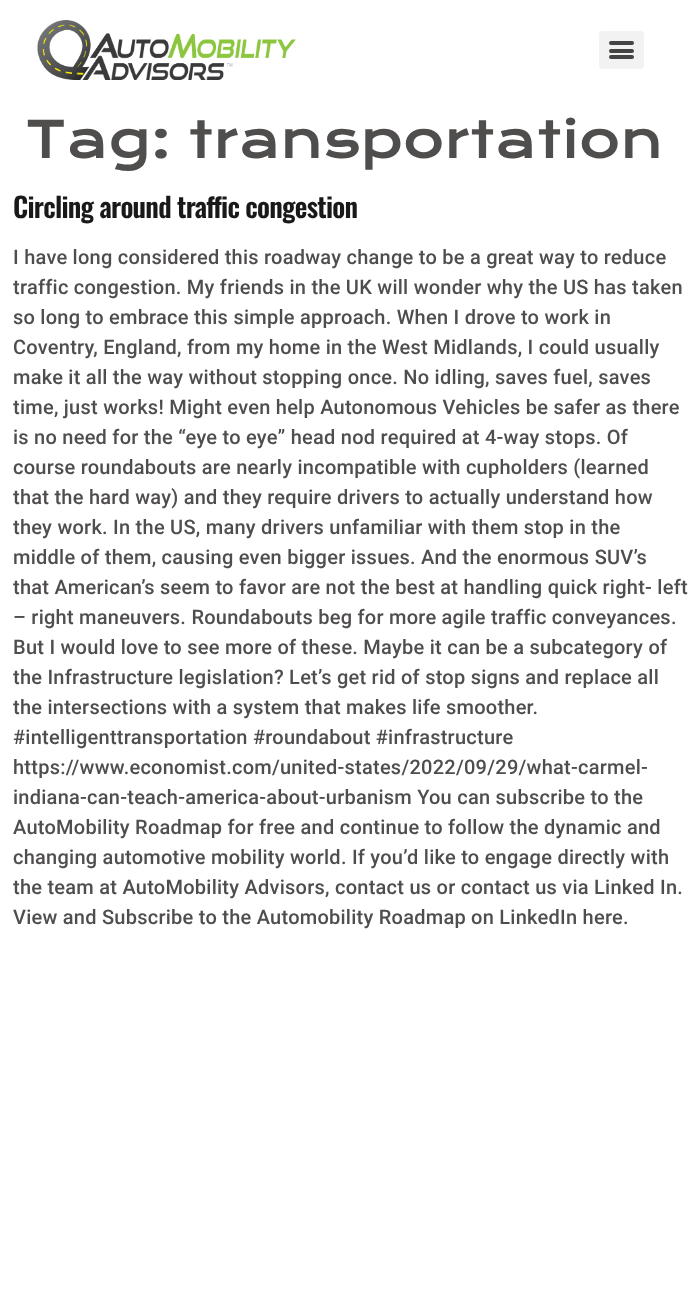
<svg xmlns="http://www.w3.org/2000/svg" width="700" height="1299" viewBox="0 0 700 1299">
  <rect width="100%" height="100%" fill="#fff"/>
  <image x="37" y="20" width="259" height="60" href="img/1.png"/>
  <rect x="599" y="31" width="45" height="38" rx="4" fill="#f2f2f2"/>
  <rect x="609" y="49" width="25" height="4" rx="2" fill="#454442"/>
  <rect x="609" y="41" width="25" height="4" rx="2" fill="#454442"/>
  <rect x="609" y="55" width="25" height="4" rx="2" fill="#454442"/>
  <text x="25" y="158" font-family="Krona One" font-size="50" letter-spacing="0.25" fill="#504d4d">Tag: transportation</text>
  <text x="13" y="218" font-family="Oswald" font-size="27.5" font-weight="600" letter-spacing="-0.75" fill="#191919">Circling around traffic congestion</text>
  <g font-family="Roboto" font-size="20" font-weight="500" letter-spacing="0.25" fill="#504d4d">
    <text x="13" y="264">I have long considered this roadway change to be a great way to reduce</text>
    <text x="13" y="294">traffic congestion. My friends in the UK will wonder why the US has taken</text>
    <text x="13" y="324">so long to embrace this simple approach. When I drove to work in</text>
    <text x="13" y="354">Coventry, England, from my home in the West Midlands, I could usually</text>
    <text x="13" y="384">make it all the way without stopping once. No idling, saves fuel, saves</text>
    <text x="13" y="414">time, just works! Might even help Autonomous Vehicles be safer as there</text>
    <text x="13" y="444">is no need for the “eye to eye” head nod required at 4-way stops. Of</text>
    <text x="13" y="474">course roundabouts are nearly incompatible with cupholders (learned</text>
    <text x="13" y="504">that the hard way) and they require drivers to actually understand how</text>
    <text x="13" y="534">they work. In the US, many drivers unfamiliar with them stop in the</text>
    <text x="13" y="564">middle of them, causing even bigger issues. And the enormous SUV’s</text>
    <text x="13" y="594">that American’s seem to favor are not the best at handling quick right- left</text>
    <text x="13" y="624">– right maneuvers. Roundabouts beg for more agile traffic conveyances.</text>
    <text x="13" y="654">But I would love to see more of these. Maybe it can be a subcategory of</text>
    <text x="13" y="684">the Infrastructure legislation? Let’s get rid of stop signs and replace all</text>
    <text x="13" y="714">the intersections with a system that makes life smoother.</text>
    <text x="13" y="744">#intelligenttransportation #roundabout #infrastructure</text>
    <text x="13" y="774">https://www.economist.com/united-states/2022/09/29/what-carmel-</text>
    <text x="13" y="804">indiana-can-teach-america-about-urbanism You can subscribe to the</text>
    <text x="13" y="834">AutoMobility Roadmap for free and continue to follow the dynamic and</text>
    <text x="13" y="864">changing automotive mobility world. If you’d like to engage directly with</text>
    <text x="13" y="894">the team at AutoMobility Advisors, contact us or contact us via Linked In.</text>
    <text x="13" y="924">View and Subscribe to the Automobility Roadmap on LinkedIn here.</text>
  </g>
</svg>
